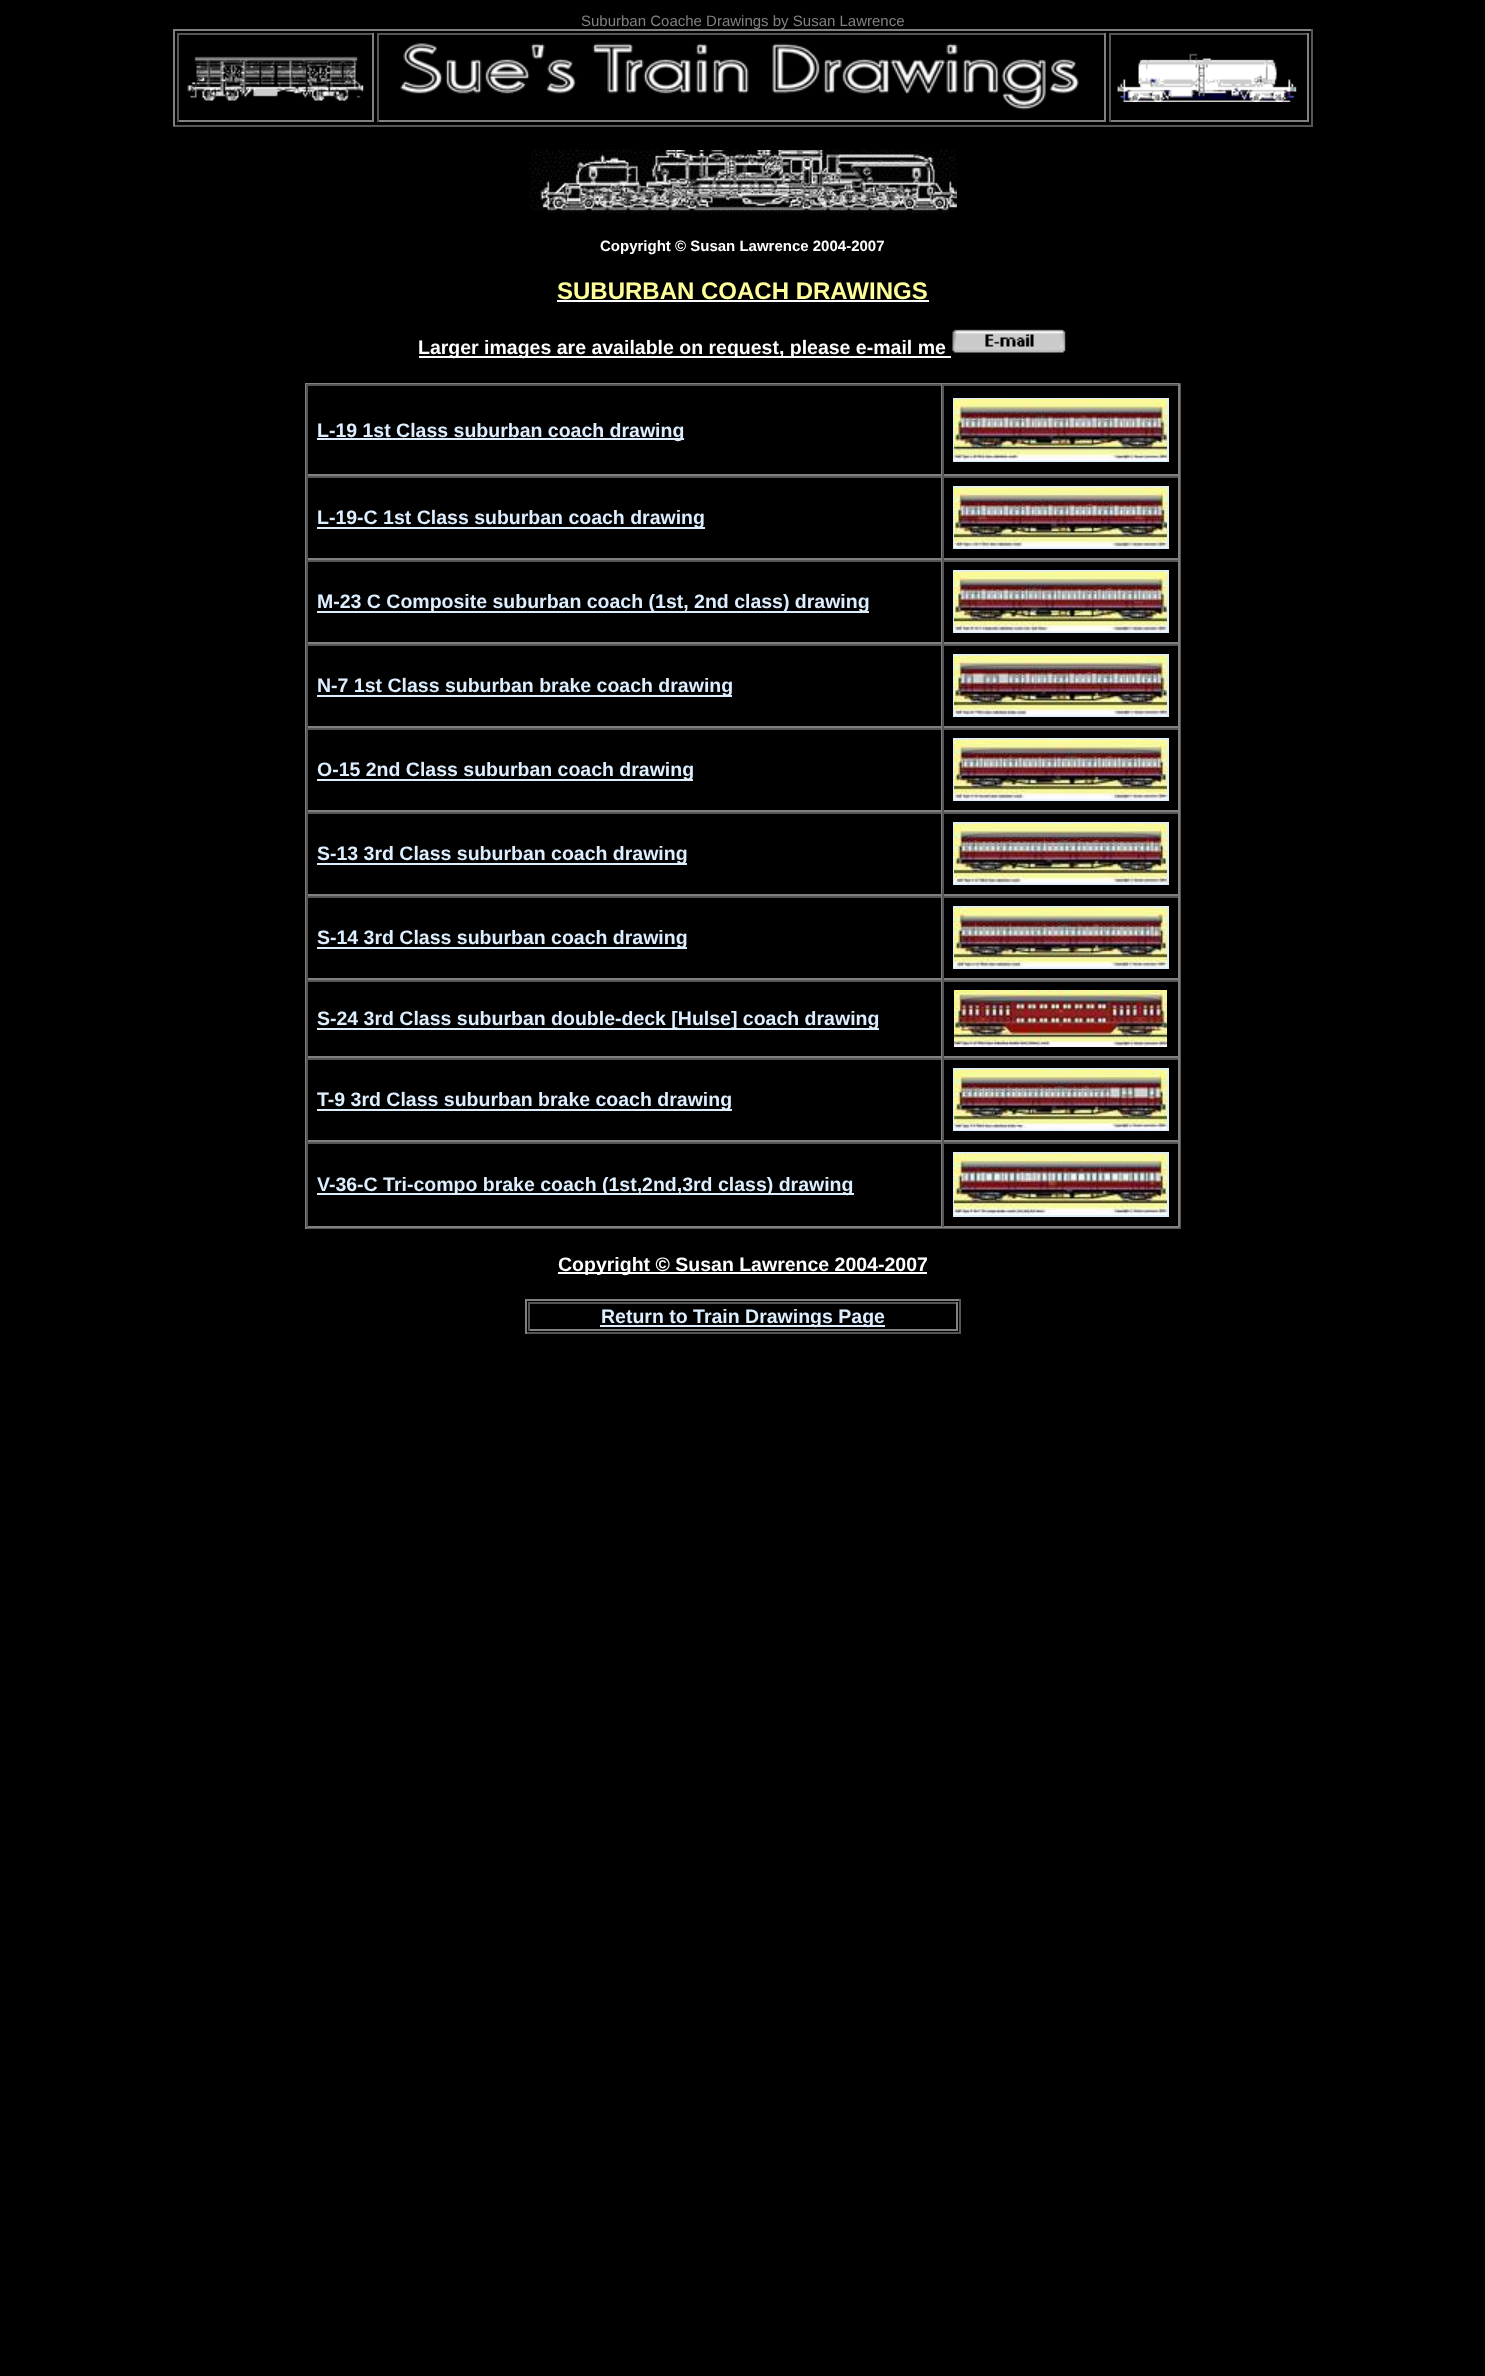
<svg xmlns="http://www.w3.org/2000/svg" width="1485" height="2376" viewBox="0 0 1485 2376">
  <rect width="100%" height="100%" fill="#000"/>
  <path d="M173 29h1140v2H173z" fill="#808080"/>
  <path d="M1311 29h2v97H1311z" fill="#555"/>
  <path d="M173 125h1140v2H173z" fill="#555"/>
  <path d="M173 29h2v97H173z" fill="#808080"/>
  <path d="M177 33h197v2H177z" fill="#555"/>
  <path d="M372 33h2v89H372z" fill="#808080"/>
  <path d="M177 120h197v2H177z" fill="#808080"/>
  <path d="M177 33h2v89H177z" fill="#555"/>
  <image x="187" y="56" width="177" height="45" href="img/1.png"/>
  <path d="M377 33h729v2H377z" fill="#555"/>
  <path d="M1104 33h2v89H1104z" fill="#808080"/>
  <path d="M377 120h729v2H377z" fill="#808080"/>
  <path d="M377 33h2v89H377z" fill="#555"/>
  <image x="400" y="43" width="679" height="67" href="img/2.png"/>
  <path d="M1109 33h199v2H1109z" fill="#555"/>
  <path d="M1307 33h2v89H1307z" fill="#808080"/>
  <path d="M1109 120h199v2H1109z" fill="#808080"/>
  <path d="M1109 33h2v89H1109z" fill="#555"/>
  <image x="1117" y="53" width="180" height="49" href="img/3.png"/>
  <image x="529" y="150" width="428" height="63" href="img/4.png"/>
  <path d="M557 300h372v2H557z" fill="#fff"/>
  <path d="M419 356h532v2H419z" fill="#fff"/>
  <image x="952" y="329" width="114" height="24" href="img/5.png"/>
  <path d="M305 383h876v1H305z" fill="#808080"/>
  <path d="M1179 383h2v846H1179z" fill="#555"/>
  <path d="M305 1227h876v2H305z" fill="#555"/>
  <path d="M305 383h2v846H305z" fill="#808080"/>
  <path d="M306 384h873v2H306z" fill="#555"/>
  <path d="M941 384h1v92H941z" fill="#808080"/>
  <path d="M306 474h636v2H306z" fill="#808080"/>
  <path d="M306 384h2v92H306z" fill="#555"/>
  <path d="M317 438h367v2H317z" fill="#def"/>
  <path d="M1178 384h2v92H1178z" fill="#808080"/>
  <path d="M942 474h237v2H942z" fill="#808080"/>
  <path d="M942 384h2v92H942z" fill="#555"/>
  <path d="M954 399h214v62H954z" fill="none" stroke="#def" stroke-width="2"/>
  <image x="954" y="399" width="213" height="62" href="img/6.png"/>
  <path d="M306 476h873v2H306z" fill="#555"/>
  <path d="M941 476h1v84H941z" fill="#808080"/>
  <path d="M306 558h636v2H306z" fill="#808080"/>
  <path d="M306 476h2v84H306z" fill="#555"/>
  <path d="M317 527h388v2H317z" fill="#def"/>
  <path d="M1178 476h2v84H1178z" fill="#808080"/>
  <path d="M942 558h237v2H942z" fill="#808080"/>
  <path d="M942 476h2v84H942z" fill="#555"/>
  <path d="M954 487h214v61H954z" fill="none" stroke="#def" stroke-width="2"/>
  <image x="954" y="487" width="213" height="61" href="img/7.png"/>
  <path d="M306 560h873v2H306z" fill="#555"/>
  <path d="M941 560h1v84H941z" fill="#808080"/>
  <path d="M306 642h636v2H306z" fill="#808080"/>
  <path d="M306 560h2v84H306z" fill="#555"/>
  <path d="M317 611h552v2H317z" fill="#def"/>
  <path d="M1178 560h2v84H1178z" fill="#808080"/>
  <path d="M942 642h237v2H942z" fill="#808080"/>
  <path d="M942 560h2v84H942z" fill="#555"/>
  <path d="M954 571h214v61H954z" fill="none" stroke="#def" stroke-width="2"/>
  <image x="954" y="571" width="213" height="61" href="img/8.png"/>
  <path d="M306 644h873v2H306z" fill="#555"/>
  <path d="M941 644h1v84H941z" fill="#808080"/>
  <path d="M306 726h636v2H306z" fill="#808080"/>
  <path d="M306 644h2v84H306z" fill="#555"/>
  <path d="M317 695h415v2H317z" fill="#def"/>
  <path d="M1178 644h2v84H1178z" fill="#808080"/>
  <path d="M942 726h237v2H942z" fill="#808080"/>
  <path d="M942 644h2v84H942z" fill="#555"/>
  <path d="M954 655h214v61H954z" fill="none" stroke="#def" stroke-width="2"/>
  <image x="954" y="655" width="213" height="61" href="img/9.png"/>
  <path d="M306 728h873v2H306z" fill="#555"/>
  <path d="M941 728h1v84H941z" fill="#808080"/>
  <path d="M306 810h636v2H306z" fill="#808080"/>
  <path d="M306 728h2v84H306z" fill="#555"/>
  <path d="M317 779h376v2H317z" fill="#def"/>
  <path d="M1178 728h2v84H1178z" fill="#808080"/>
  <path d="M942 810h237v2H942z" fill="#808080"/>
  <path d="M942 728h2v84H942z" fill="#555"/>
  <path d="M954 739h214v61H954z" fill="none" stroke="#def" stroke-width="2"/>
  <image x="954" y="739" width="213" height="61" href="img/10.png"/>
  <path d="M306 812h873v2H306z" fill="#555"/>
  <path d="M941 812h1v84H941z" fill="#808080"/>
  <path d="M306 894h636v2H306z" fill="#808080"/>
  <path d="M306 812h2v84H306z" fill="#555"/>
  <path d="M317 863h370v2H317z" fill="#def"/>
  <path d="M1178 812h2v84H1178z" fill="#808080"/>
  <path d="M942 894h237v2H942z" fill="#808080"/>
  <path d="M942 812h2v84H942z" fill="#555"/>
  <path d="M954 823h214v61H954z" fill="none" stroke="#def" stroke-width="2"/>
  <image x="954" y="823" width="213" height="61" href="img/11.png"/>
  <path d="M306 896h873v2H306z" fill="#555"/>
  <path d="M941 896h1v84H941z" fill="#808080"/>
  <path d="M306 978h636v2H306z" fill="#808080"/>
  <path d="M306 896h2v84H306z" fill="#555"/>
  <path d="M317 947h370v2H317z" fill="#def"/>
  <path d="M1178 896h2v84H1178z" fill="#808080"/>
  <path d="M942 978h237v2H942z" fill="#808080"/>
  <path d="M942 896h2v84H942z" fill="#555"/>
  <path d="M954 907h214v61H954z" fill="none" stroke="#def" stroke-width="2"/>
  <image x="954" y="907" width="213" height="61" href="img/12.png"/>
  <path d="M306 980h873v2H306z" fill="#555"/>
  <path d="M941 980h1v78H941z" fill="#808080"/>
  <path d="M306 1056h636v2H306z" fill="#808080"/>
  <path d="M306 980h2v78H306z" fill="#555"/>
  <path d="M317 1028h562v2H317z" fill="#def"/>
  <path d="M1178 980h2v78H1178z" fill="#808080"/>
  <path d="M942 1056h237v2H942z" fill="#808080"/>
  <path d="M942 980h2v78H942z" fill="#555"/>
  <image x="954" y="990" width="213" height="57" href="img/13.png"/>
  <path d="M306 1058h873v2H306z" fill="#555"/>
  <path d="M941 1058h1v84H941z" fill="#808080"/>
  <path d="M306 1140h636v2H306z" fill="#808080"/>
  <path d="M306 1058h2v84H306z" fill="#555"/>
  <path d="M317 1109h415v2H317z" fill="#def"/>
  <path d="M1178 1058h2v84H1178z" fill="#808080"/>
  <path d="M942 1140h237v2H942z" fill="#808080"/>
  <path d="M942 1058h2v84H942z" fill="#555"/>
  <path d="M954 1069h214v61H954z" fill="none" stroke="#def" stroke-width="2"/>
  <image x="954" y="1069" width="213" height="61" href="img/14.png"/>
  <path d="M306 1142h873v2H306z" fill="#555"/>
  <path d="M941 1142h1v85H941z" fill="#808080"/>
  <path d="M306 1226h636v2H306z" fill="#808080"/>
  <path d="M306 1142h2v85H306z" fill="#555"/>
  <path d="M317 1193h537v2H317z" fill="#def"/>
  <path d="M1178 1142h2v85H1178z" fill="#808080"/>
  <path d="M942 1226h237v2H942z" fill="#808080"/>
  <path d="M942 1142h2v85H942z" fill="#555"/>
  <path d="M954 1153h214v63H954z" fill="none" stroke="#def" stroke-width="2"/>
  <image x="954" y="1153" width="213" height="62" href="img/15.png"/>
  <path d="M558 1272h369v2H558z" fill="#fff"/>
  <path d="M525 1299h435v2H525z" fill="#808080"/>
  <path d="M959 1299h2v35H959z" fill="#555"/>
  <path d="M525 1332h435v2H525z" fill="#555"/>
  <path d="M525 1299h2v35H525z" fill="#808080"/>
  <path d="M528 1302h429v2H528z" fill="#555"/>
  <path d="M956 1302h2v29H956z" fill="#808080"/>
  <path d="M528 1329h429v2H528z" fill="#808080"/>
  <path d="M528 1302h2v29H528z" fill="#555"/>
  <path d="M600 1325h285v2H600z" fill="#def"/>
  <text x="581" y="26" font-family="Liberation Sans" font-size="15" fill="#808080">Suburban Coache Drawings by Susan Lawrence</text>
  <text x="600" y="251" font-family="Liberation Sans" font-size="15" font-weight="bold" fill="#fff">Copyright © Susan Lawrence 2004-2007</text>
  <text x="557" y="299" font-family="Liberation Sans" font-size="24" font-weight="bold" fill="#ff9">SUBURBAN COACH DRAWINGS</text>
  <text x="418" y="354" font-family="Liberation Sans" font-size="19.5" font-weight="bold" fill="#fff">Larger images are available on request, please e-mail me</text>
  <g font-family="Liberation Sans" font-size="19.5" font-weight="bold" fill="#def">
    <text x="317" y="437">L-19 1st Class suburban coach drawing</text>
    <text x="317" y="524">L-19-C 1st Class suburban coach drawing</text>
    <text x="317" y="608">M-23 C Composite suburban coach (1st, 2nd class) drawing</text>
    <text x="317" y="692">N-7 1st Class suburban brake coach drawing</text>
    <text x="317" y="776">O-15 2nd Class suburban coach drawing</text>
    <text x="317" y="860">S-13 3rd Class suburban coach drawing</text>
    <text x="317" y="944">S-14 3rd Class suburban coach drawing</text>
    <text x="317" y="1025">S-24 3rd Class suburban double-deck [Hulse] coach drawing</text>
    <text x="317" y="1106">T-9 3rd Class suburban brake coach drawing</text>
    <text x="317" y="1191">V-36-C Tri-compo brake coach (1st,2nd,3rd class) drawing</text>
  </g>
  <text x="558" y="1271" font-family="Liberation Sans" font-size="19.5" font-weight="bold" fill="#fff">Copyright © Susan Lawrence 2004-2007</text>
  <text x="601" y="1323" font-family="Liberation Sans" font-size="19.5" font-weight="bold" fill="#def">Return to Train Drawings Page</text>
</svg>
